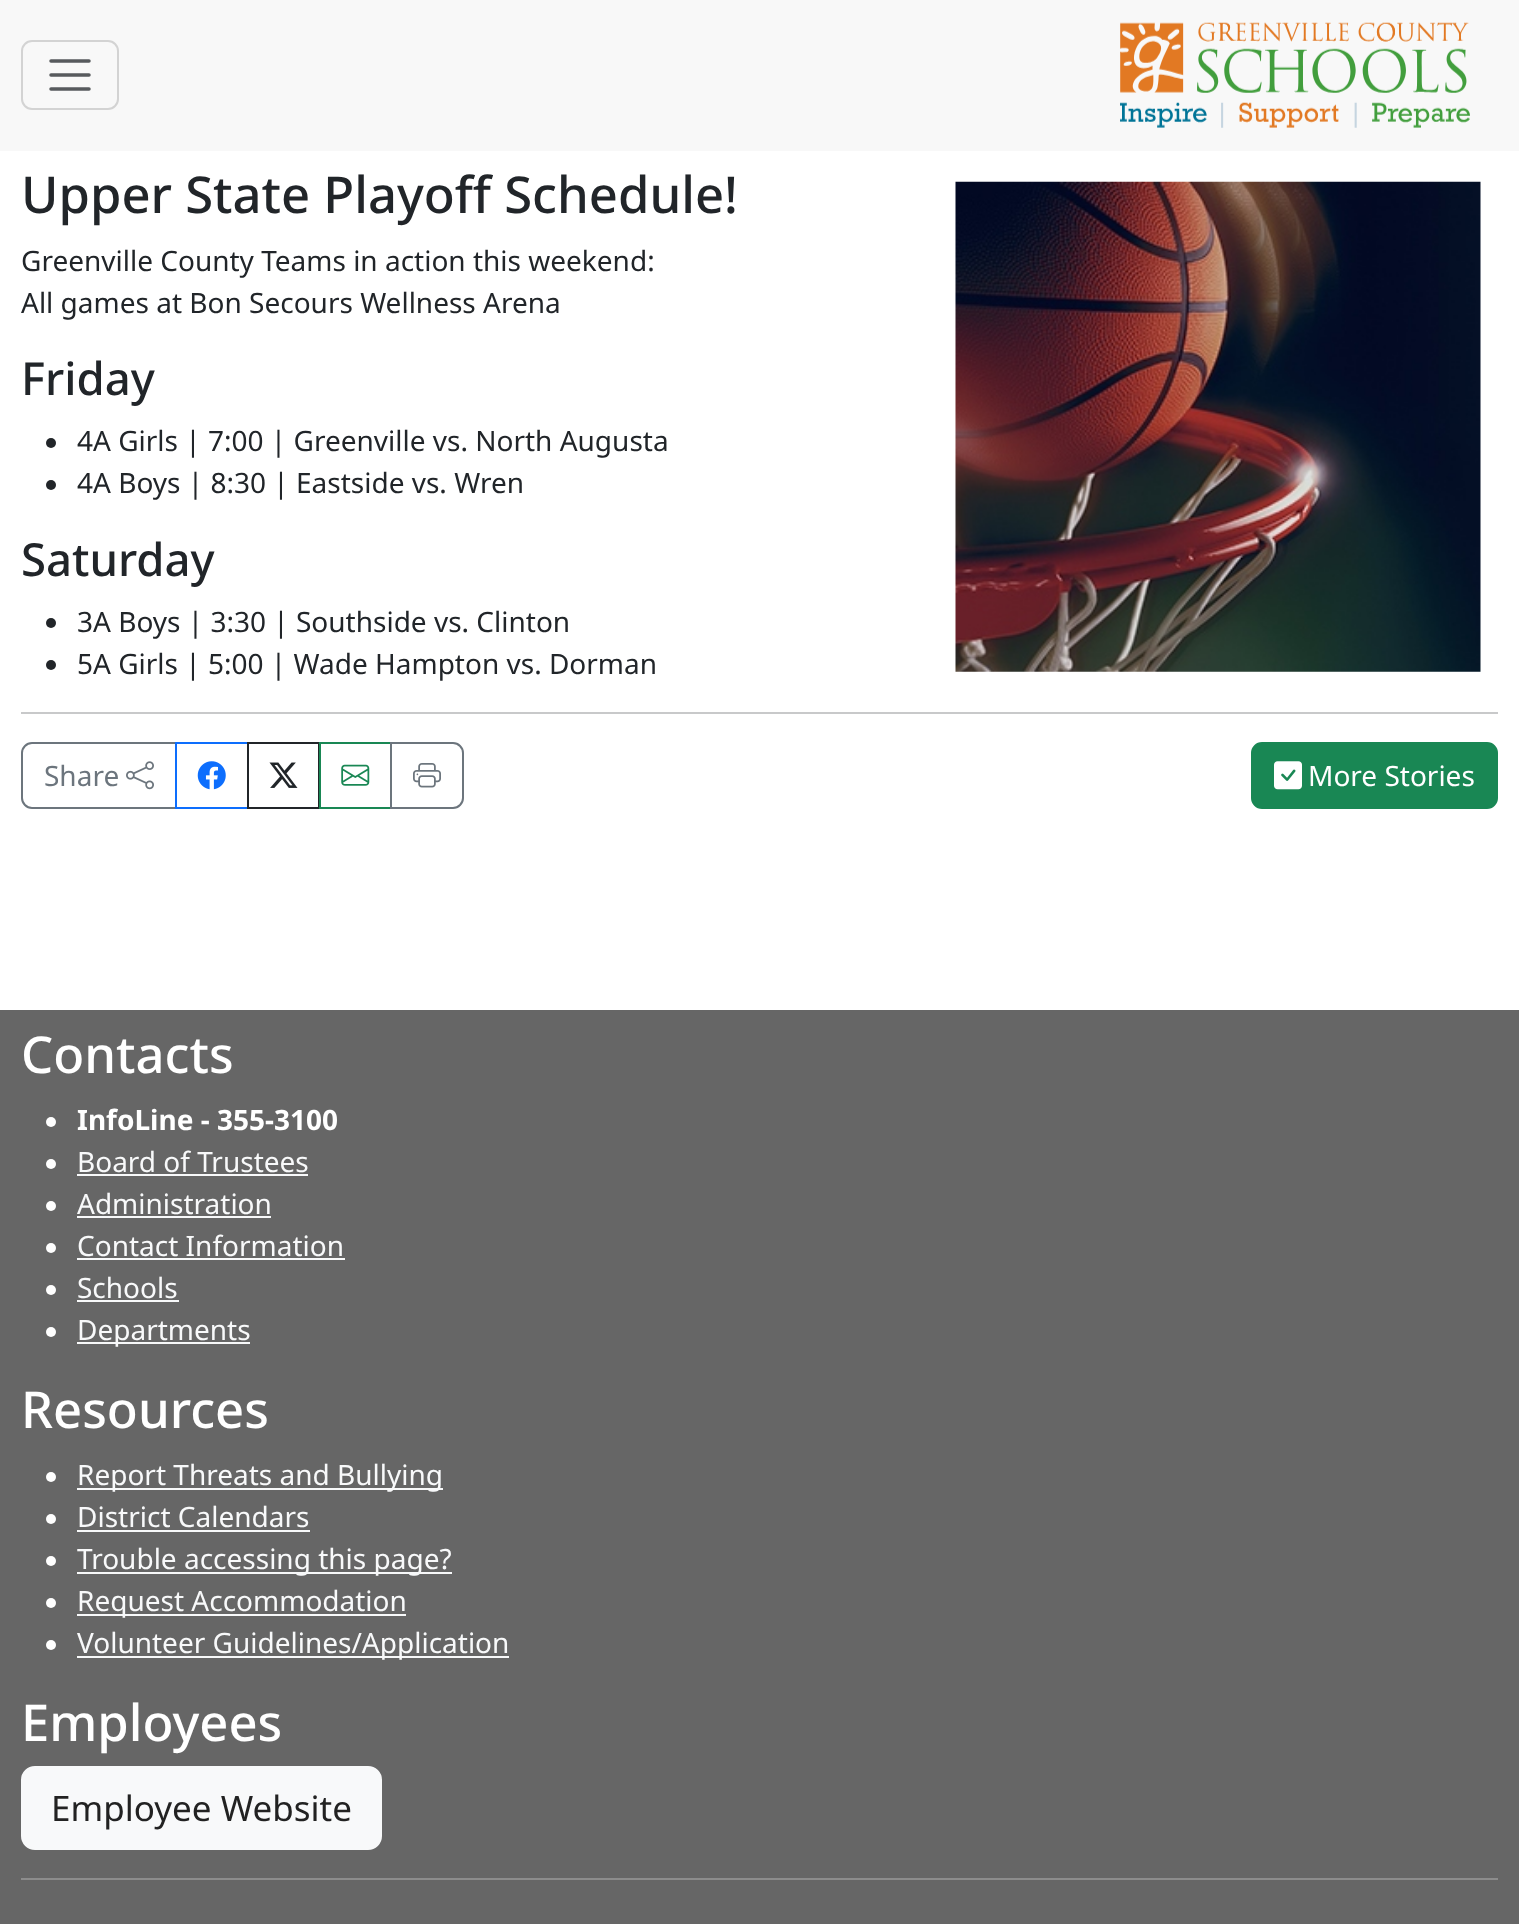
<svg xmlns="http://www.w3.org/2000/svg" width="1519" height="1924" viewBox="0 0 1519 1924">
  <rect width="100%" height="100%" fill="#fff"/>
  <path d="M0 0h1519v151H0z" fill="#f8f8f8"/>
  <rect x="22" y="41" width="96" height="68" rx="10" fill="none" stroke="#d3d3d3" stroke-width="2"/>
  <path d="M51 61H89M51 75H89M51 89H89" fill="none" stroke="#575a5d" stroke-width="3.5" stroke-linecap="round"/>
  <image x="1120" y="22" width="350" height="106" href="img/1.png"/>
  <image x="955" y="181" width="526" height="491" href="img/2.png"/>
  <circle cx="51" cy="443" r="5" fill="#212529"/>
  <circle cx="51" cy="485" r="5" fill="#212529"/>
  <circle cx="51" cy="623" r="5" fill="#212529"/>
  <circle cx="51" cy="665" r="5" fill="#212529"/>
  <path d="M21 712h1477v2H21z" fill="#c8c9ca"/>
  <path d="M32 743H176V808H32C26.5 808 22 803.5 22 798V753C22 747.5 26.5 743 32 743Z" fill="none" stroke="#6c757d" stroke-width="2"/>
  <image x="126" y="761" width="28" height="29" href="img/3.png"/>
  <path d="M176 743h72v65H176z" fill="none" stroke="#0d6efd" stroke-width="2"/>
  <image x="197" y="761" width="29" height="29" href="img/4.png"/>
  <path d="M248 743h71v65H248z" fill="none" stroke="#212529" stroke-width="2"/>
  <image x="269" y="762" width="29" height="26" href="img/5.png"/>
  <path d="M320 743h71v65H320z" fill="none" stroke="#198754" stroke-width="2"/>
  <image x="341" y="764" width="29" height="22" href="img/6.png"/>
  <path d="M391 743H453C458.5 743 463 747.5 463 753V798C463 803.5 458.5 808 453 808H391Z" fill="none" stroke="#6c757d" stroke-width="2"/>
  <image x="413" y="763" width="28" height="25" href="img/7.png"/>
  <rect x="1252" y="743" width="245" height="65" rx="10" fill="#198754" stroke="#198754" stroke-width="2"/>
  <image x="1274" y="761" width="28" height="29" href="img/8.png"/>
  <path d="M0 1010h1519v914H0z" fill="#666"/>
  <circle cx="51" cy="1122" r="5" fill="#fff"/>
  <circle cx="51" cy="1164" r="5" fill="#fff"/>
  <path d="M77 1174h231v2H77z" fill="#f8f9fa"/>
  <circle cx="51" cy="1206" r="5" fill="#fff"/>
  <path d="M77 1216h194v2H77z" fill="#f8f9fa"/>
  <circle cx="51" cy="1248" r="5" fill="#fff"/>
  <path d="M77 1258h268v2H77z" fill="#f8f9fa"/>
  <circle cx="51" cy="1290" r="5" fill="#fff"/>
  <path d="M77 1300h102v2H77z" fill="#f8f9fa"/>
  <circle cx="51" cy="1332" r="5" fill="#fff"/>
  <path d="M77 1342h173v2H77z" fill="#f8f9fa"/>
  <circle cx="51" cy="1477" r="5" fill="#fff"/>
  <path d="M77 1488h366v2H77z" fill="#f8f9fa"/>
  <circle cx="51" cy="1519" r="5" fill="#fff"/>
  <path d="M77 1530h233v2H77z" fill="#f8f9fa"/>
  <circle cx="51" cy="1561" r="5" fill="#fff"/>
  <path d="M77 1572h375v2H77z" fill="#f8f9fa"/>
  <circle cx="51" cy="1603" r="5" fill="#fff"/>
  <path d="M77 1614h329v2H77z" fill="#f8f9fa"/>
  <circle cx="51" cy="1645" r="5" fill="#fff"/>
  <path d="M77 1656h432v2H77z" fill="#f8f9fa"/>
  <rect x="22" y="1767" width="359" height="82" rx="13" fill="#f8f9fa" stroke="#f8f9fa" stroke-width="2"/>
  <path d="M21 1878h1477v2H21z" fill="#8c8c8c"/>
  <text x="21" y="213" font-family="Noto Sans" font-size="50.75" font-weight="500" fill="#212529">Upper State Playoff Schedule!</text>
  <g font-family="Noto Sans" font-size="28" fill="#212529">
    <text x="21" y="271">Greenville County Teams in action this weekend:</text>
    <text x="21" y="313">All games at Bon Secours Wellness Arena</text>
  </g>
  <text x="21" y="395" font-family="Noto Sans" font-size="45.5" font-weight="500" fill="#212529">Friday</text>
  <g font-family="Noto Sans" font-size="28" fill="#212529">
    <text x="77" y="451">4A Girls | 7:00 | Greenville vs. North Augusta</text>
    <text x="77" y="493">4A Boys | 8:30 | Eastside vs. Wren</text>
  </g>
  <text x="21" y="576" font-family="Noto Sans" font-size="45.5" font-weight="500" fill="#212529">Saturday</text>
  <g font-family="Noto Sans" font-size="28" fill="#212529">
    <text x="77" y="632">3A Boys | 3:30 | Southside vs. Clinton</text>
    <text x="77" y="674">5A Girls | 5:00 | Wade Hampton vs. Dorman</text>
  </g>
  <text x="44" y="786" font-family="Noto Sans" font-size="28" fill="#6c757d">Share</text>
  <text x="1308" y="786" font-family="Noto Sans" font-size="28" fill="#fff">More Stories</text>
  <text x="21" y="1073" font-family="Noto Sans" font-size="50.75" font-weight="500" fill="#fff">Contacts</text>
  <text x="77" y="1130" font-family="Noto Sans" font-size="28" font-weight="bold" fill="#fff">InfoLine - 355-3100</text>
  <g font-family="Noto Sans" font-size="28" fill="#f8f9fa">
    <text x="77" y="1172">Board of Trustees</text>
    <text x="77" y="1214">Administration</text>
    <text x="77" y="1256">Contact Information</text>
    <text x="77" y="1298">Schools</text>
    <text x="77" y="1340">Departments</text>
  </g>
  <text x="21" y="1428" font-family="Noto Sans" font-size="50.75" font-weight="500" fill="#fff">Resources</text>
  <g font-family="Noto Sans" font-size="28" fill="#f8f9fa">
    <text x="77" y="1485">Report Threats and Bullying</text>
    <text x="77" y="1527">District Calendars</text>
    <text x="77" y="1569">Trouble accessing this page?</text>
    <text x="77" y="1611">Request Accommodation</text>
    <text x="77" y="1653">Volunteer Guidelines/Application</text>
  </g>
  <text x="21" y="1741" font-family="Noto Sans" font-size="50.75" font-weight="500" fill="#fff">Employees</text>
  <text x="51" y="1821" font-family="Noto Sans" font-size="35" fill="#222">Employee Website</text>
</svg>
